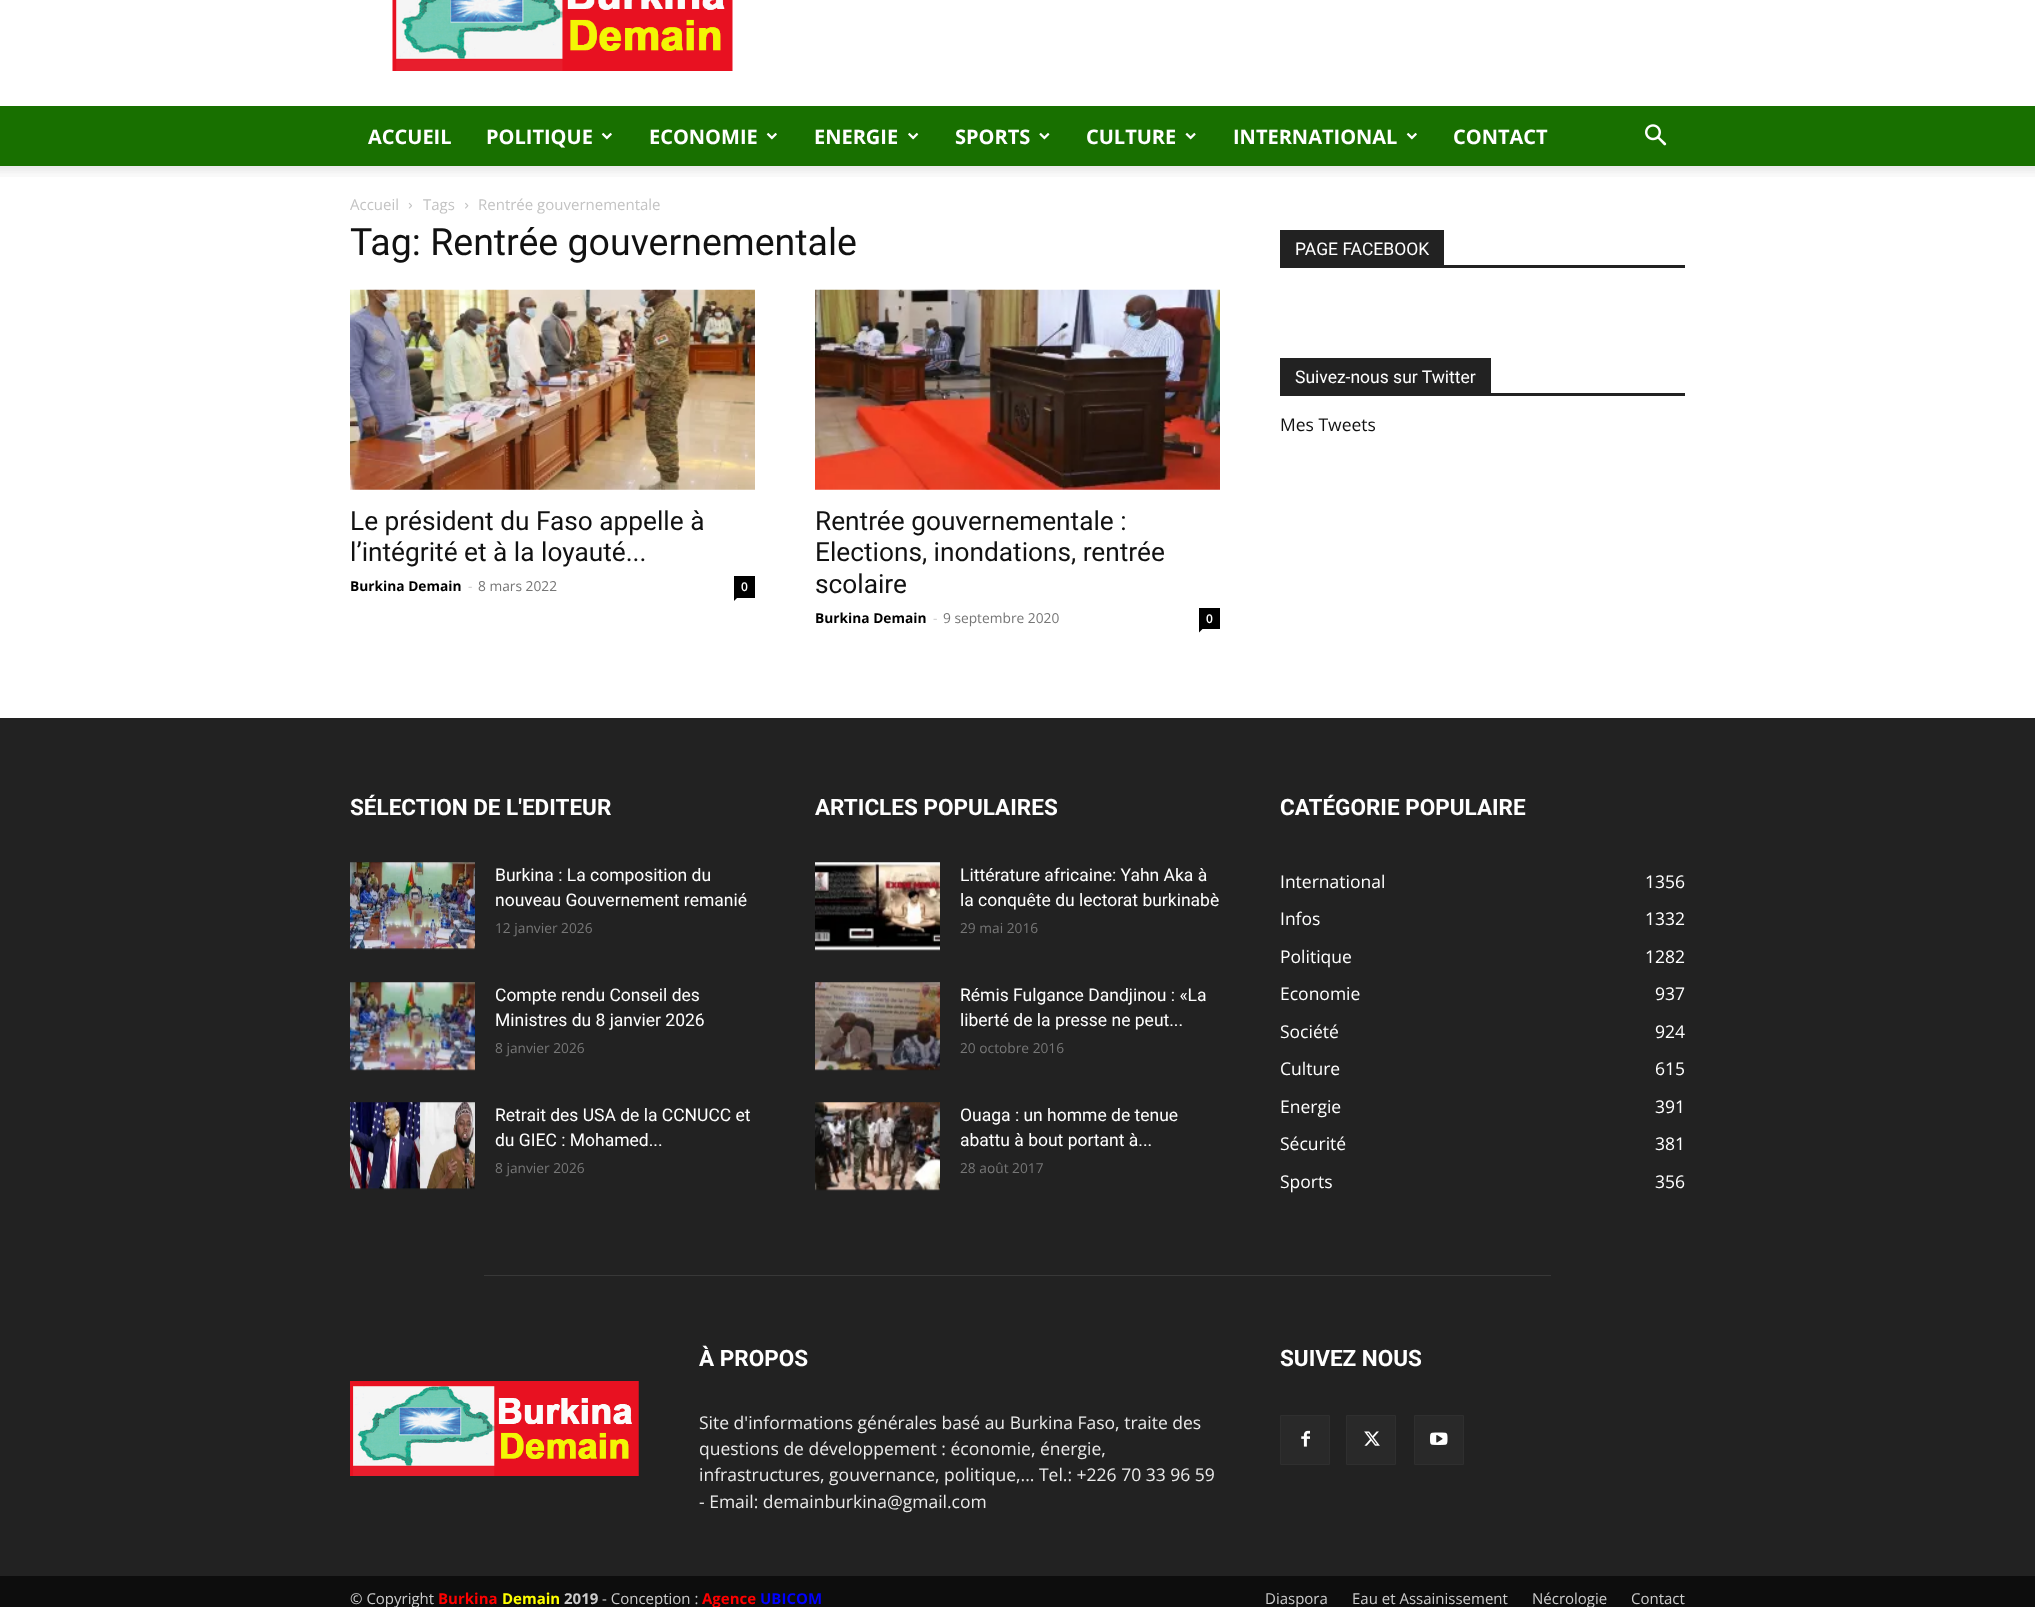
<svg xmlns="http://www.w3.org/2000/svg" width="2035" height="1607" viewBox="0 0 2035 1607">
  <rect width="100%" height="100%" fill="#fff"/>
  <image x="392" y="0" width="341" height="71" href="img/1.png"/>
  <path d="M0 106h2035v60H0z" fill="#187000"/>
  <image x="601" y="132" width="11" height="8" href="img/2.png"/>
  <image x="766" y="132" width="11" height="8" href="img/2.png"/>
  <image x="908" y="132" width="11" height="8" href="img/3.png"/>
  <image x="1039" y="132" width="11" height="8" href="img/4.png"/>
  <image x="1185" y="132" width="11" height="8" href="img/5.png"/>
  <image x="1406" y="132" width="11" height="8" href="img/2.png"/>
  <image x="1645" y="124" width="22" height="22" href="img/6.png"/>
  <image x="0" y="166" width="2035" height="11" href="img/7.png"/>
  <image x="408" y="202" width="4" height="7" href="img/8.png"/>
  <image x="465" y="202" width="4" height="7" href="img/9.png"/>
  <image x="350" y="289" width="405" height="201" href="img/10.png"/>
  <path d="M734 576h21v22H734z" fill="#000"/>
  <path d="M734 597.5H737.5L734 601Z" fill="#000"/>
  <image x="815" y="289" width="405" height="201" href="img/11.png"/>
  <path d="M1199 608h21v21H1199z" fill="#000"/>
  <path d="M1199 629H1202.5L1199 632.5Z" fill="#000"/>
  <path d="M1280 265h405v3H1280z" fill="#222"/>
  <path d="M1280 230h164v35H1280z" fill="#222"/>
  <path d="M1280 393h405v3H1280z" fill="#222"/>
  <path d="M1280 358h211v35H1280z" fill="#222"/>
  <path d="M0 718h2035v858H0z" fill="#222"/>
  <image x="350" y="862" width="125" height="88" href="img/12.png"/>
  <image x="350" y="982" width="125" height="89" href="img/13.png"/>
  <image x="350" y="1102" width="125" height="88" href="img/14.png"/>
  <image x="815" y="862" width="125" height="89" href="img/15.png"/>
  <image x="815" y="982" width="125" height="89" href="img/16.png"/>
  <image x="815" y="1102" width="125" height="89" href="img/17.png"/>
  <path d="M484 1275h1067v1H484z" fill="#383838"/>
  <path d="M1281 1416h48v48H1281z" fill="#292929"/>
  <image x="1301" y="1430" width="9" height="17" href="img/18.png"/>
  <path d="M1280.5 1415.5h49v49H1280.5z" fill="none" stroke="#2f2f2f"/>
  <path d="M1347 1416h48v48H1347z" fill="#292929"/>
  <image x="1364" y="1431" width="16" height="15" href="img/19.png"/>
  <path d="M1346.5 1415.5h49v49H1346.5z" fill="none" stroke="#2f2f2f"/>
  <path d="M1415 1416h48v48H1415z" fill="#292929"/>
  <image x="1430" y="1432" width="18" height="13" href="img/20.png"/>
  <path d="M1414.5 1415.5h49v49H1414.5z" fill="none" stroke="#2f2f2f"/>
  <image x="350" y="1381" width="289" height="95" href="img/21.png"/>
  <path d="M0 1576h2035v31H0z" fill="#0d0d0d"/>
  <g font-family="Open Sans" font-size="20" font-weight="bold" fill="#fff">
    <text x="368" y="144">ACCUEIL</text>
    <text x="486" y="144">POLITIQUE</text>
    <text x="649" y="144">ECONOMIE</text>
    <text x="814" y="144">ENERGIE</text>
    <text x="955" y="144">SPORTS</text>
    <text x="1086" y="144">CULTURE</text>
    <text x="1233" y="144">INTERNATIONAL</text>
    <text x="1453" y="144">CONTACT</text>
  </g>
  <g font-family="Open Sans" font-size="15" fill="#c3c3c3">
    <text x="350" y="210">Accueil</text>
    <text x="423" y="210">Tags</text>
    <text x="478" y="210">Rentrée gouvernementale</text>
  </g>
  <text x="350" y="255" font-family="Roboto" font-size="37.5" fill="#111">Tag: Rentrée gouvernementale</text>
  <g font-family="Roboto" font-size="26.25" fill="#111">
    <text x="350" y="530">Le président du Faso appelle à</text>
    <text x="350" y="561">l’intégrité et à la loyauté...</text>
  </g>
  <text x="350" y="591" font-family="Open Sans" font-size="13.75" font-weight="bold" fill="#000">Burkina Demain</text>
  <text x="468" y="591" font-family="Open Sans" font-size="13.75" fill="#ccc">-</text>
  <text x="478" y="591" font-family="Open Sans" font-size="13.75" fill="#767676">8 mars 2022</text>
  <text x="741" y="591" font-family="Open Sans" font-size="12" font-weight="600" fill="#fff">0</text>
  <g font-family="Roboto" font-size="26.25" fill="#111">
    <text x="815" y="530">Rentrée gouvernementale :</text>
    <text x="815" y="561">Elections, inondations, rentrée</text>
    <text x="815" y="593">scolaire</text>
  </g>
  <text x="815" y="623" font-family="Open Sans" font-size="13.75" font-weight="bold" fill="#000">Burkina Demain</text>
  <text x="933" y="623" font-family="Open Sans" font-size="13.75" fill="#ccc">-</text>
  <text x="943" y="623" font-family="Open Sans" font-size="13.75" fill="#767676">9 septembre 2020</text>
  <text x="1206" y="623" font-family="Open Sans" font-size="12" font-weight="600" fill="#fff">0</text>
  <g font-family="Roboto" font-size="17.5" fill="#fff">
    <text x="1295" y="255">PAGE FACEBOOK</text>
    <text x="1295" y="383">Suivez-nous sur Twitter</text>
  </g>
  <text x="1280" y="431" font-family="Open Sans" font-size="17.5" fill="#111">Mes Tweets</text>
  <text x="350" y="815" font-family="Roboto" font-size="22.5" font-weight="bold" fill="#fff">SÉLECTION DE L'EDITEUR</text>
  <g font-family="Roboto" font-size="17.5" fill="#fff">
    <text x="495" y="881">Burkina : La composition du</text>
    <text x="495" y="906">nouveau Gouvernement remanié</text>
  </g>
  <text x="495" y="933" font-family="Open Sans" font-size="13.75" fill="#767676">12 janvier 2026</text>
  <g font-family="Roboto" font-size="17.5" fill="#fff">
    <text x="495" y="1001">Compte rendu Conseil des</text>
    <text x="495" y="1026">Ministres du 8 janvier 2026</text>
  </g>
  <text x="495" y="1053" font-family="Open Sans" font-size="13.75" fill="#767676">8 janvier 2026</text>
  <g font-family="Roboto" font-size="17.5" fill="#fff">
    <text x="495" y="1121">Retrait des USA de la CCNUCC et</text>
    <text x="495" y="1146">du GIEC : Mohamed...</text>
  </g>
  <text x="495" y="1173" font-family="Open Sans" font-size="13.75" fill="#767676">8 janvier 2026</text>
  <text x="815" y="815" font-family="Roboto" font-size="22.5" font-weight="bold" fill="#fff">ARTICLES POPULAIRES</text>
  <g font-family="Roboto" font-size="17.5" fill="#fff">
    <text x="960" y="881">Littérature africaine: Yahn Aka à</text>
    <text x="960" y="906">la conquête du lectorat burkinabè</text>
  </g>
  <text x="960" y="933" font-family="Open Sans" font-size="13.75" fill="#767676">29 mai 2016</text>
  <g font-family="Roboto" font-size="17.5" fill="#fff">
    <text x="960" y="1001">Rémis Fulgance Dandjinou : «La</text>
    <text x="960" y="1026">liberté de la presse ne peut...</text>
  </g>
  <text x="960" y="1053" font-family="Open Sans" font-size="13.75" fill="#767676">20 octobre 2016</text>
  <g font-family="Roboto" font-size="17.5" fill="#fff">
    <text x="960" y="1121">Ouaga : un homme de tenue</text>
    <text x="960" y="1146">abattu à bout portant à...</text>
  </g>
  <text x="960" y="1173" font-family="Open Sans" font-size="13.75" fill="#767676">28 août 2017</text>
  <text x="1280" y="815" font-family="Roboto" font-size="22.5" font-weight="bold" fill="#fff">CATÉGORIE POPULAIRE</text>
  <g font-family="Open Sans" font-size="17.5" fill="#fff">
    <text x="1280" y="888">International</text>
    <text x="1645" y="888">1356</text>
    <text x="1280" y="925">Infos</text>
    <text x="1645" y="925">1332</text>
    <text x="1280" y="963">Politique</text>
    <text x="1645" y="963">1282</text>
    <text x="1280" y="1000">Economie</text>
    <text x="1655" y="1000">937</text>
    <text x="1280" y="1038">Société</text>
    <text x="1655" y="1038">924</text>
    <text x="1280" y="1075">Culture</text>
    <text x="1655" y="1075">615</text>
    <text x="1280" y="1113">Energie</text>
    <text x="1655" y="1113">391</text>
    <text x="1280" y="1150">Sécurité</text>
    <text x="1655" y="1150">381</text>
    <text x="1280" y="1188">Sports</text>
    <text x="1655" y="1188">356</text>
  </g>
  <text x="699" y="1366" font-family="Roboto" font-size="22.5" font-weight="bold" fill="#fff">À PROPOS</text>
  <g font-family="Open Sans" font-size="17.5" fill="#eaeaea">
    <text x="699" y="1429">Site d'informations générales basé au Burkina Faso, traite des</text>
    <text x="699" y="1455">questions de développement : économie, énergie,</text>
    <text x="699" y="1481">infrastructures, gouvernance, politique,... Tel.: +226 70 33 96 59</text>
    <text x="699" y="1508">- Email: demainburkina@gmail.com</text>
  </g>
  <text x="1280" y="1366" font-family="Roboto" font-size="22.5" font-weight="bold" fill="#fff">SUIVEZ NOUS</text>
  <text x="350" y="1604" font-family="Open Sans" font-size="15" fill="#ccc">© Copyright</text>
  <text x="438" y="1604" font-family="Open Sans" font-size="15" font-weight="bold" fill="#f00">Burkina</text>
  <text x="502" y="1604" font-family="Open Sans" font-size="15" font-weight="bold" fill="#ff0">Demain</text>
  <text x="564" y="1604" font-family="Open Sans" font-size="15" font-weight="bold" fill="#ccc">2019</text>
  <text x="602" y="1604" font-family="Open Sans" font-size="15" fill="#ccc">- Conception :</text>
  <text x="702" y="1604" font-family="Open Sans" font-size="15" font-weight="bold" fill="#f00">Agence</text>
  <text x="760" y="1604" font-family="Open Sans" font-size="15" font-weight="bold" fill="#00f">UBICOM</text>
  <g font-family="Open Sans" font-size="15" fill="#ccc">
    <text x="1265" y="1604">Diaspora</text>
    <text x="1352" y="1604">Eau et Assainissement</text>
    <text x="1532" y="1604">Nécrologie</text>
    <text x="1631" y="1604">Contact</text>
  </g>
</svg>
